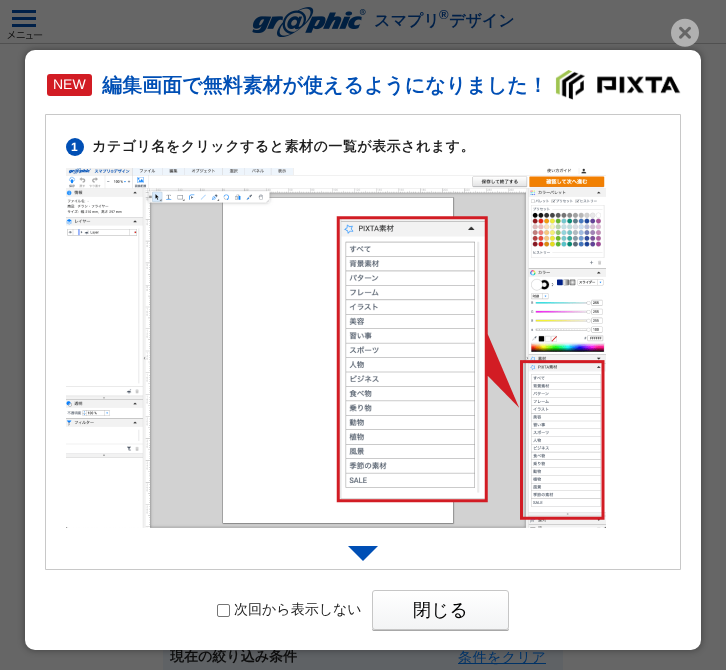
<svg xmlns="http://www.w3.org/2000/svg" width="726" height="670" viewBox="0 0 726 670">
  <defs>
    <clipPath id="clip1"><rect x="372" y="590" width="137" height="40" rx="3"/></clipPath>
    <linearGradient id="g1" gradientUnits="userSpaceOnUse" x1="441" y1="591" x2="441" y2="629"><stop offset="0" stop-color="#fff"/><stop offset="1" stop-color="#f3f4f5"/></linearGradient>
  </defs>
  <rect width="100%" height="100%" fill="#666"/>
  <path d="M0 43h726v1H0z" fill="#505050"/>
  <image x="7" y="10" width="36" height="29" href="img/1.png"/>
  <image x="252" y="7" width="114" height="30" href="img/2.png"/>
  <path d="M163 650h400v20H163z" fill="#5f6265"/>
  <rect x="24" y="49" width="678" height="602" rx="11" fill="#0000004d" filter="blur(3px)"/>
  <image x="671" y="18" width="28" height="29" href="img/3.png"/>
  <path d="M458 663h88v1H458z" fill="#003266"/>
  <text x="374" y="26" font-family="WenQuanYi Zen Hei" font-size="16" font-weight="bold" fill="#002048">スマプリ</text>
  <text x="439" y="19" font-family="Liberation Sans" font-size="13" font-weight="bold" fill="#002048">®</text>
  <text x="449" y="26" font-family="WenQuanYi Zen Hei" font-size="16" font-weight="bold" fill="#002048">デザイン</text>
  <text x="170" y="661" font-family="WenQuanYi Zen Hei" font-size="14" font-weight="bold" fill="#0c0c0c">現在の絞り込み条件</text>
  <rect x="25" y="50" width="676" height="600" rx="10" fill="#fff"/>
  <path d="M372 627C372 629 372 631 374 631H507C509 631 509 629 509 627C509 629 508 630 506 630H375C373 630 372 629 372 627Z" fill="#a8a8a8"/>
  <g clip-path="url(#clip1)">
    <path d="M372 591h137v38H372z" fill="url(#g1)"/>
  </g>
  <rect x="372.5" y="590.5" width="136" height="39" rx="2.5" fill="none" stroke="#c6c6c6"/>
  <text x="413" y="616" font-family="WenQuanYi Zen Hei" font-size="18" font-weight="500" fill="#000">閉じる</text>
  <path d="M45.5 114.5h635v455H45.5z" fill="none" stroke="#c8c8c8"/>
  <path d="M348 546H378L363 561Z" fill="#004fb5"/>
  <circle cx="75" cy="147" r="9" fill="#004fb5"/>
  <text x="71" y="151" font-family="Liberation Sans" font-size="12" font-weight="bold" letter-spacing="0.5" fill="#fff">1</text>
  <image x="66" y="168" width="540" height="360" href="img/5.png"/>
  <text x="92" y="151" font-family="WenQuanYi Zen Hei" font-size="14" font-weight="bold" letter-spacing="0.5" fill="#1e1e1e">カテゴリ名をクリックすると素材の一覧が表示されます。</text>
  <image x="555" y="70" width="126" height="30" href="img/4.png"/>
  <text x="102" y="92" font-family="WenQuanYi Zen Hei" font-size="20" font-weight="bold" fill="#004fb5">編集画面で無料素材が使えるようになりました！</text>
  <rect x="47" y="74" width="45" height="22" rx="3" fill="#d21c24"/>
  <text x="53" y="89" font-family="Liberation Sans" font-size="14" fill="#fff">NEW</text>
  <text x="234" y="614" font-family="WenQuanYi Zen Hei" font-size="14" font-weight="500" fill="#1e1e1e">次回から表示しない</text>
  <rect x="217.5" y="604.5" width="12" height="12" rx="1.5" fill="none" stroke="#767676"/>
  <text x="458" y="662" font-family="WenQuanYi Zen Hei" font-size="14" font-weight="500" letter-spacing="0.5" fill="#003266">条件をクリア</text>
</svg>
